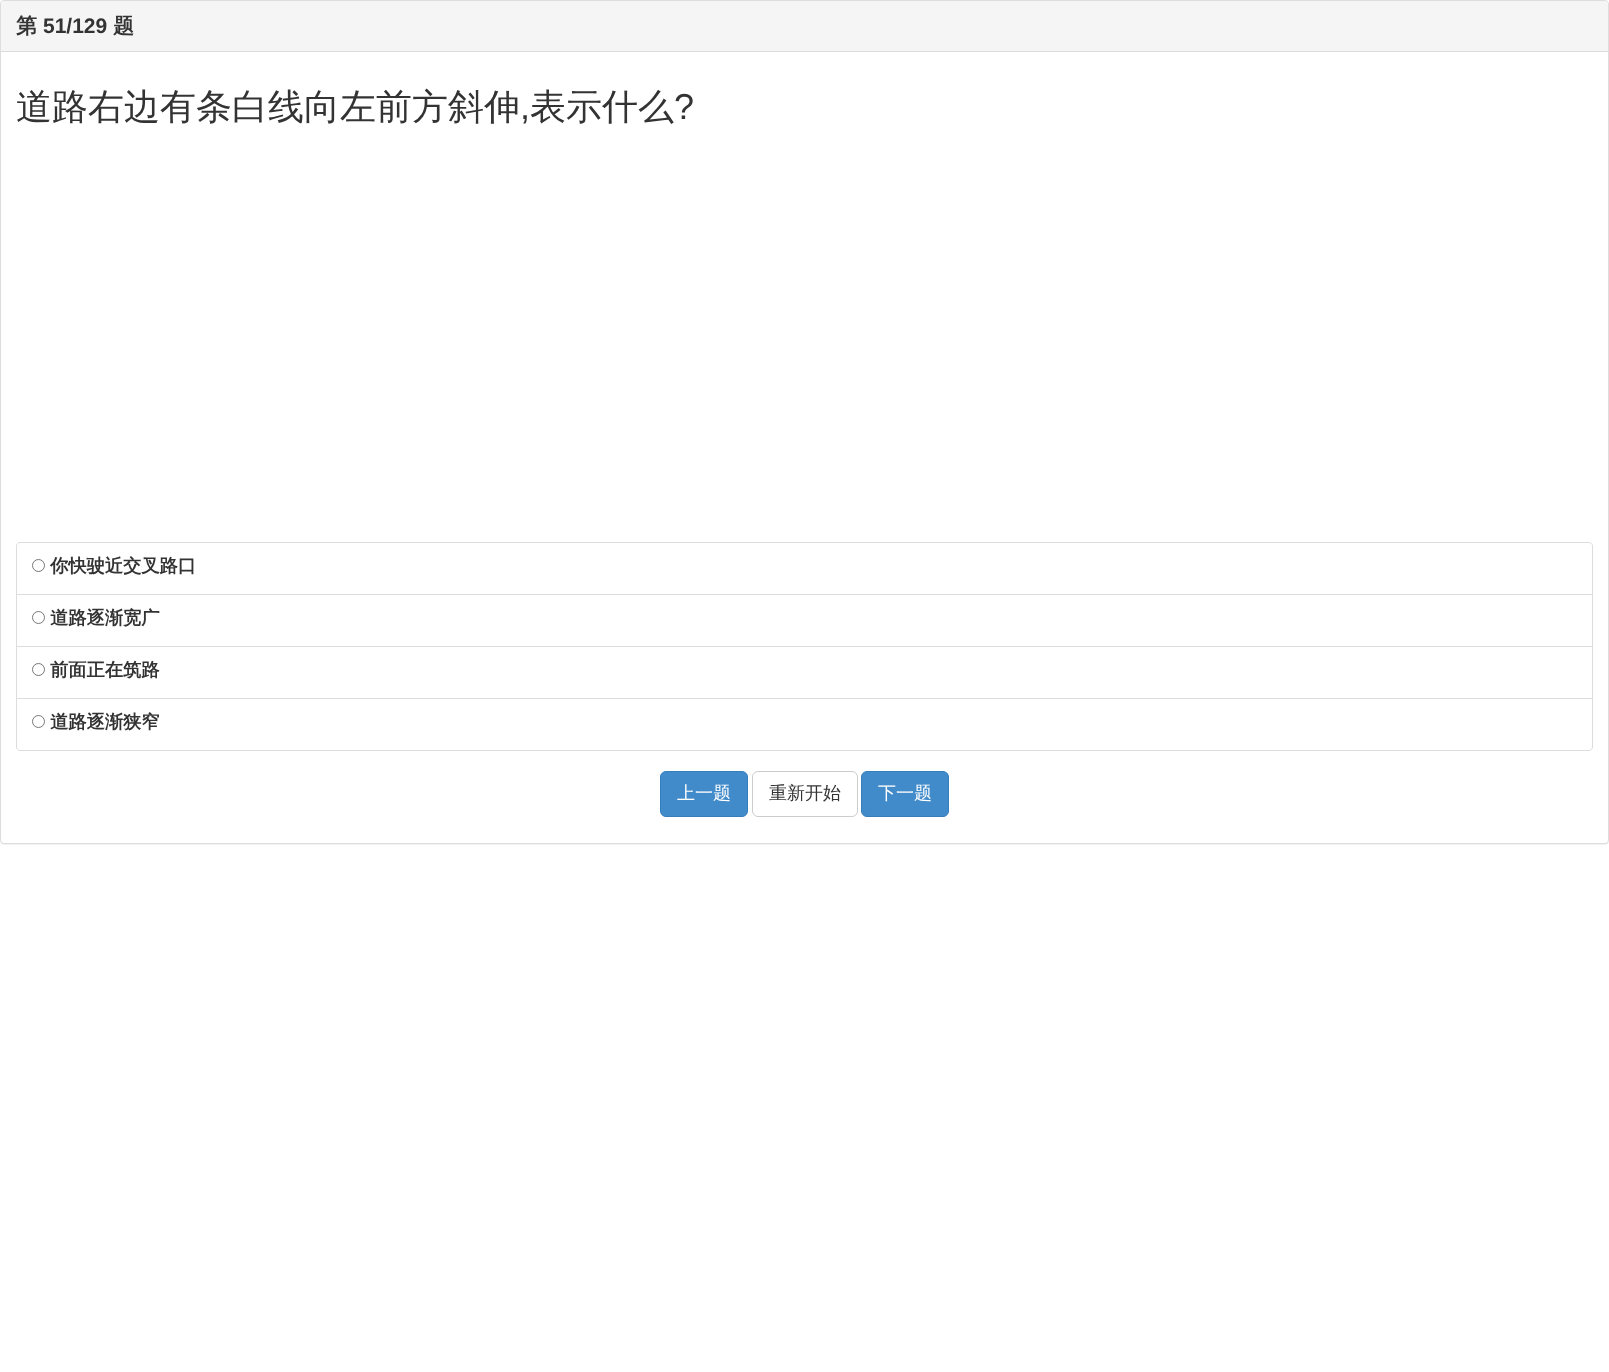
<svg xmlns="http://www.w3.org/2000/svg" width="1609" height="1372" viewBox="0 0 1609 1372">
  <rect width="100%" height="100%" fill="#fff"/>
  <rect y="1" width="1609" height="844" rx="4" fill="#0000000d" filter="blur(0.5px)"/>
  <rect x="0.5" y="0.5" width="1608" height="843" rx="3.5" fill="#fff" stroke="#ddd"/>
  <path d="M4 1H1605C1606.5 1 1608 2.5 1608 4V52H1V4C1 2.5 2.5 1 4 1Z" fill="#f5f5f5"/>
  <path d="M1 51h1607v1H1z" fill="#ddd"/>
  <path d="M20 542.5H1589C1591 542.5 1592.5 544 1592.5 546V594.5H16.5V546C16.5 544 18 542.5 20 542.5Z" fill="none" stroke="#ddd"/>
  <circle cx="38.5" cy="565.5" r="6" fill="none" stroke="#767676"/>
  <path d="M16.5 594.5h1576v52H16.5z" fill="none" stroke="#ddd"/>
  <circle cx="38.5" cy="617.5" r="6" fill="none" stroke="#767676"/>
  <path d="M16.5 646.5h1576v52H16.5z" fill="none" stroke="#ddd"/>
  <circle cx="38.5" cy="669.5" r="6" fill="none" stroke="#767676"/>
  <path d="M16.5 698.5H1592.5V747C1592.5 749 1591 750.5 1589 750.5H20C18 750.5 16.5 749 16.5 747Z" fill="#fff" stroke="#ddd"/>
  <circle cx="38.5" cy="721.5" r="6" fill="none" stroke="#767676"/>
  <rect x="660.5" y="771.5" width="87" height="45" rx="5.5" fill="#428bca" stroke="#357ebd"/>
  <rect x="752.5" y="771.5" width="105" height="45" rx="5.5" fill="none" stroke="#ccc"/>
  <rect x="861.5" y="771.5" width="87" height="45" rx="5.5" fill="#428bca" stroke="#357ebd"/>
  <text x="16" y="33" font-family="WenQuanYi Zen Hei" font-size="21" font-weight="bold" fill="#333">第</text>
  <text x="43" y="33" font-family="Liberation Sans" font-size="21" font-weight="bold" fill="#333">51/129</text>
  <text x="113" y="33" font-family="WenQuanYi Zen Hei" font-size="21" font-weight="bold" fill="#333">题</text>
  <text x="16" y="119" font-family="WenQuanYi Zen Hei" font-size="36" font-weight="500" fill="#333">道路右边有条白线向左前方斜伸</text>
  <text x="520" y="119" font-family="Liberation Sans" font-size="36" fill="#333">,</text>
  <text x="530" y="119" font-family="WenQuanYi Zen Hei" font-size="36" font-weight="500" fill="#333">表示什么</text>
  <text x="674" y="119" font-family="Liberation Sans" font-size="36" fill="#333">?</text>
  <g font-family="WenQuanYi Zen Hei" font-size="18.25" font-weight="bold" fill="#333">
    <text x="50" y="572">你快驶近交叉路口</text>
    <text x="50" y="624">道路逐渐宽广</text>
    <text x="50" y="676">前面正在筑路</text>
    <text x="50" y="728">道路逐渐狭窄</text>
  </g>
  <text x="677" y="799" font-family="WenQuanYi Zen Hei" font-size="18" font-weight="500" fill="#fff">上一题</text>
  <text x="769" y="799" font-family="WenQuanYi Zen Hei" font-size="18" font-weight="500" fill="#333">重新开始</text>
  <text x="878" y="799" font-family="WenQuanYi Zen Hei" font-size="18" font-weight="500" fill="#fff">下一题</text>
</svg>
